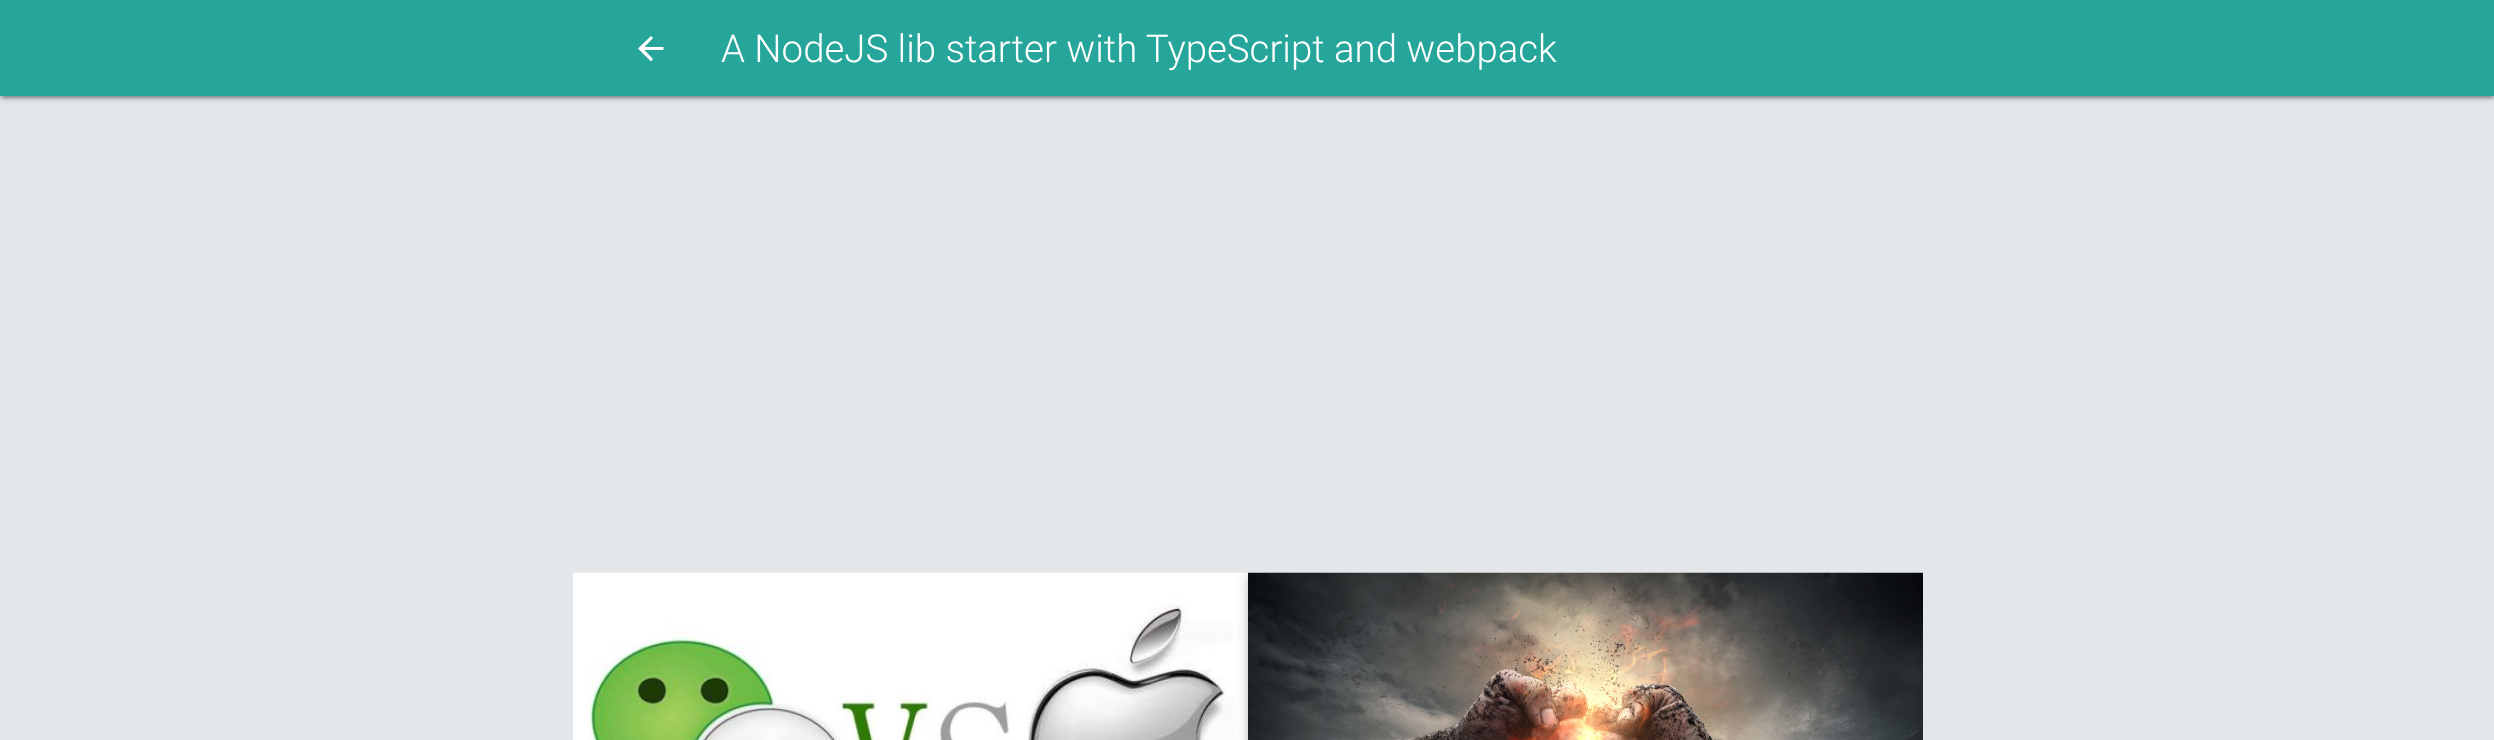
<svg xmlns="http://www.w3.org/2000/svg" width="2494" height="740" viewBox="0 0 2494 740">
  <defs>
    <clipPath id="clip1"><path d="M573 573h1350v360H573z"/></clipPath>
  </defs>
  <rect width="100%" height="100%" fill="#e4e7ea"/>
  <path d="M0 2h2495v96H0z" fill="#0000001f" filter="blur(4px)"/>
  <path d="M3 8h2489v90H3z" fill="#00000033" filter="blur(1px)"/>
  <path d="M0 3h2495v96H0z" fill="#00000024" filter="blur(1.5px)"/>
  <path d="M0 0h2494v96H0z" fill="#26a69a"/>
  <path d="M663.5 47V50H644.5L653 59L651 61.5L638 48.5L651 36L653 38L644.5 47Z" fill="#fff"/>
  <image x="573" y="572" width="675" height="168" href="img/1.png"/>
  <g clip-path="url(#clip1)">
    <path d="M1248 576h675v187H1248z" fill="#0000001f" filter="blur(7.5px)"/>
    <path d="M1248 576h675v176H1248z" fill="#00000029" filter="blur(4px)"/>
  </g>
  <image x="1248" y="572" width="675" height="168" href="img/2.png"/>
  <text x="721" y="62" font-family="Roboto" font-size="38.4" font-weight="300" fill="#fff">A NodeJS lib starter with TypeScript and webpack</text>
</svg>
